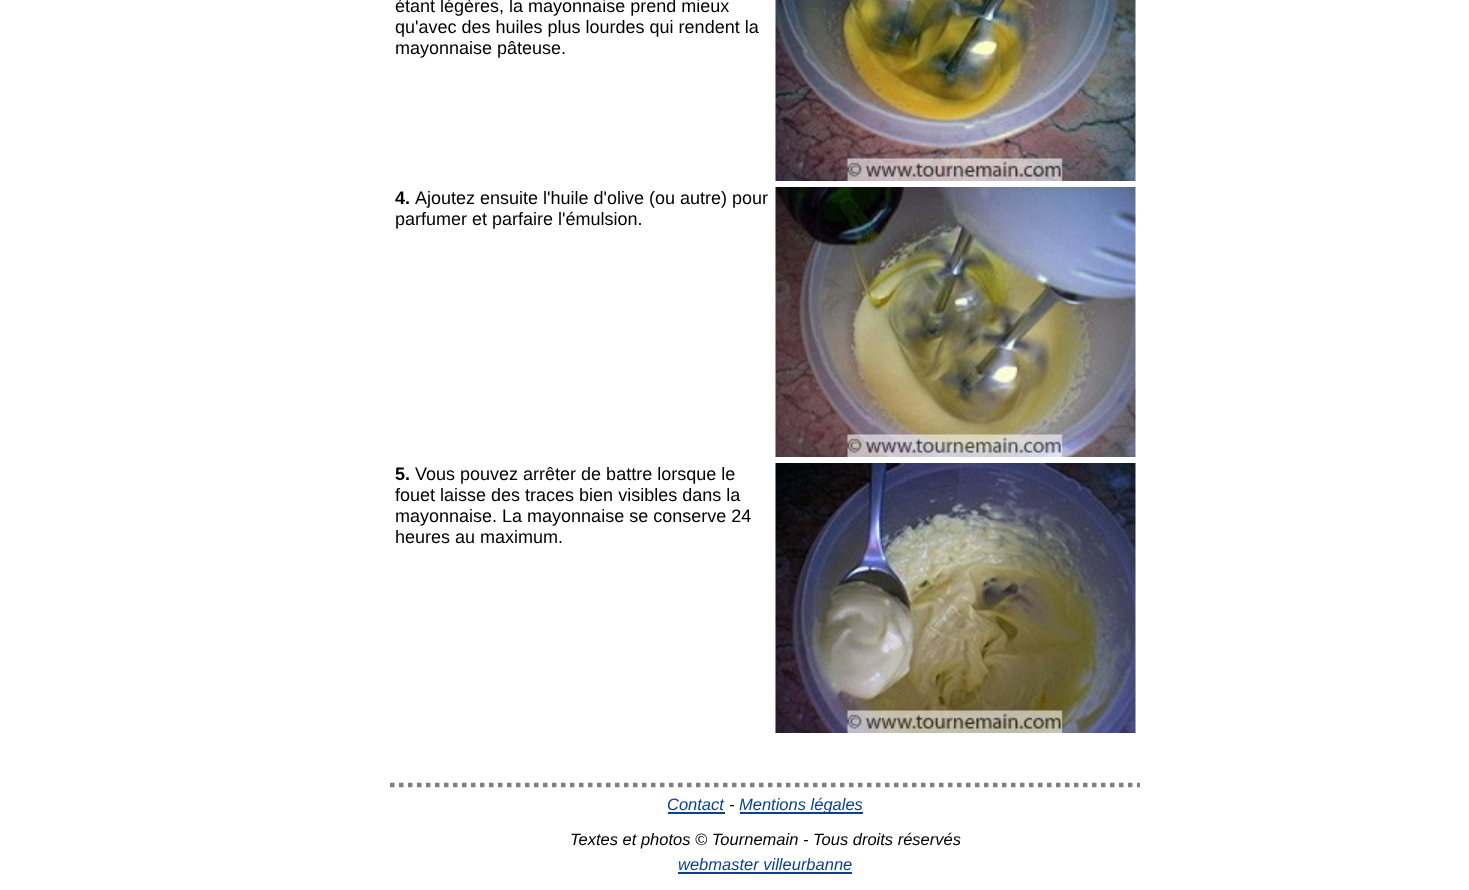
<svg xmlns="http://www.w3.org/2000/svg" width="1469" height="890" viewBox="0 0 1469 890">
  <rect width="100%" height="100%" fill="#fff"/>
  <image x="775" y="0" width="361" height="181" href="img/1.png"/>
  <image x="775" y="187" width="361" height="270" href="img/2.png"/>
  <image x="775" y="463" width="361" height="270" href="img/3.png"/>
  <path d="M390 785H1140" fill="none" stroke="#808080" stroke-width="4.5" stroke-dasharray="4.5 4.5"/>
  <path d="M668 812h57v2H668z" fill="#084291"/>
  <path d="M740 812h123v2H740z" fill="#084291"/>
  <path d="M678 872h174v2H678z" fill="#084291"/>
  <g font-family="Liberation Sans" font-size="18" fill="#000">
    <text x="395" y="12">étant légères, la mayonnaise prend mieux</text>
    <text x="395" y="33">qu'avec des huiles plus lourdes qui rendent la</text>
    <text x="395" y="54">mayonnaise pâteuse.</text>
  </g>
  <text x="395" y="204" font-family="Liberation Sans" font-size="18" font-weight="bold" fill="#000">4.</text>
  <g font-family="Liberation Sans" font-size="18" fill="#000">
    <text x="415" y="204">Ajoutez ensuite l'huile d'olive (ou autre) pour</text>
    <text x="395" y="225">parfumer et parfaire l'émulsion.</text>
  </g>
  <text x="395" y="480" font-family="Liberation Sans" font-size="18" font-weight="bold" fill="#000">5.</text>
  <g font-family="Liberation Sans" font-size="18" fill="#000">
    <text x="415" y="480">Vous pouvez arrêter de battre lorsque le</text>
    <text x="395" y="501">fouet laisse des traces bien visibles dans la</text>
    <text x="395" y="522">mayonnaise. La mayonnaise se conserve 24</text>
    <text x="395" y="543">heures au maximum.</text>
  </g>
  <text x="667" y="810" font-family="Liberation Sans" font-size="16.5" font-style="italic" fill="#084291">Contact</text>
  <text x="729" y="810" font-family="Liberation Sans" font-size="16.5" font-style="italic" fill="#000">-</text>
  <text x="739" y="810" font-family="Liberation Sans" font-size="16.5" font-style="italic" fill="#084291">Mentions légales</text>
  <text x="570" y="845" font-family="Liberation Sans" font-size="16.5" font-style="italic" fill="#000">Textes et photos © Tournemain - Tous droits réservés</text>
  <text x="678" y="870" font-family="Liberation Sans" font-size="16.5" font-style="italic" fill="#084291">webmaster villeurbanne</text>
</svg>
